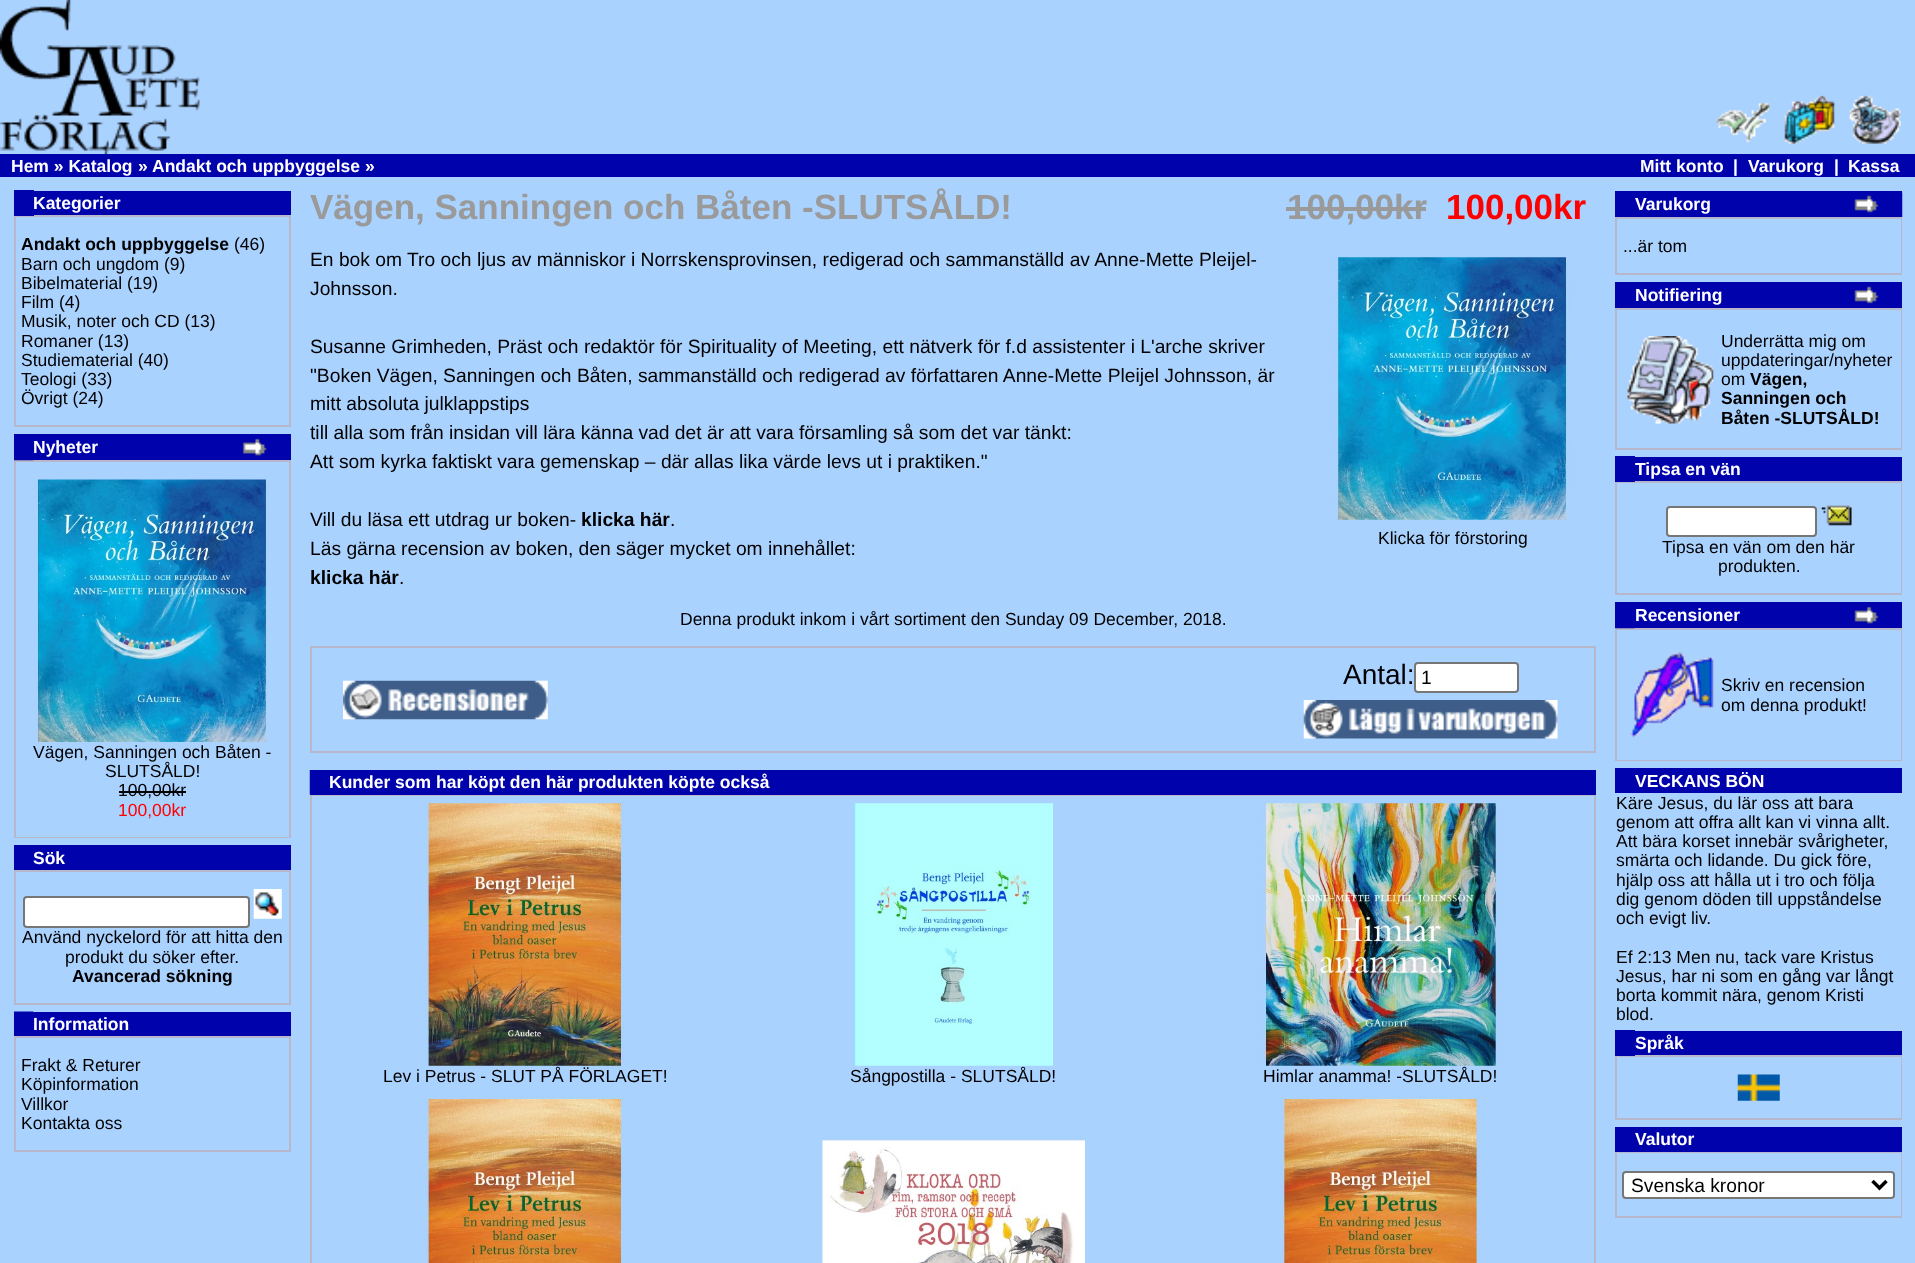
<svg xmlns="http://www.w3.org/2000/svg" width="1915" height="1263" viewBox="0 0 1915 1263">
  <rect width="100%" height="100%" fill="#aad2ff"/>
  <image x="0" y="0" width="200" height="154" href="img/1.png"/>
  <image x="1716" y="102" width="54" height="41" href="img/2.png"/>
  <image x="1784" y="95" width="51" height="49" href="img/3.png"/>
  <image x="1849" y="95" width="52" height="49" href="img/4.png"/>
  <path d="M0 154h1915v23H0z" fill="#0002ac"/>
  <path d="M14 215h277v212H14z" fill="#b6b7cb"/>
  <path d="M14 190h20v26H14z" fill="#0002ac"/>
  <path d="M34 191h257v24H34z" fill="#0002ac"/>
  <path d="M16 217h273v208H16z" fill="#aad2ff"/>
  <path d="M14 434h277v26H14z" fill="#0002ac"/>
  <path d="M14 460h277v378H14z" fill="#b6b7cb"/>
  <image x="14" y="460" width="20" height="1" href="img/5.png"/>
  <image x="242" y="438" width="25" height="18" href="img/6.png"/>
  <path d="M16 462h273v375H16z" fill="#aad2ff"/>
  <image x="33" y="479" width="237" height="263" href="img/7.png"/>
  <path d="M119 791h67v2H119z" fill="#000"/>
  <path d="M14 845h277v25H14z" fill="#0002ac"/>
  <path d="M14 870h277v135H14z" fill="#b6b7cb"/>
  <path d="M16 872h273v131H16z" fill="#aad2ff"/>
  <rect x="24" y="897" width="225" height="30" rx="3" fill="#fff" stroke="#767676" stroke-width="2"/>
  <image x="253" y="889" width="29" height="30" href="img/8.png"/>
  <path d="M14 1012h277v24H14z" fill="#0002ac"/>
  <image x="14" y="1011" width="20" height="1" href="img/9.png"/>
  <path d="M14 1036h277v116H14z" fill="#b6b7cb"/>
  <path d="M16 1038h273v112H16z" fill="#aad2ff"/>
  <path d="M1286 207h140v4H1286z" fill="#9a9a9a"/>
  <image x="1333" y="257" width="238" height="263" href="img/10.png"/>
  <path d="M310 646h1286v107H310z" fill="#b6b7cb"/>
  <path d="M312 648h1282v103H312z" fill="#aad2ff"/>
  <rect x="1415" y="663" width="103" height="29" rx="3" fill="#fff" stroke="#767676" stroke-width="2"/>
  <image x="1303" y="700" width="255" height="39" href="img/11.png"/>
  <image x="343" y="680" width="205" height="40" href="img/12.png"/>
  <path d="M310 770h1286v25H310z" fill="#0002ac"/>
  <image x="309" y="770" width="1" height="25" href="img/13.png"/>
  <path d="M310 795h1286v468H310z" fill="#b6b7cb"/>
  <path d="M312 796h1282v467H312z" fill="#aad2ff"/>
  <image x="425" y="803" width="200" height="263" href="img/14.png"/>
  <image x="853" y="803" width="201" height="263" href="img/15.png"/>
  <image x="1260" y="803" width="242" height="263" href="img/16.png"/>
  <image x="425" y="1099" width="200" height="164" href="img/17.png"/>
  <image x="822" y="1136" width="263" height="127" href="img/18.png"/>
  <image x="1281" y="1099" width="199" height="164" href="img/19.png"/>
  <path d="M1615 191h287v26H1615z" fill="#0002ac"/>
  <image x="1854" y="195" width="25" height="18" href="img/20.png"/>
  <image x="1902" y="192" width="1" height="25" href="img/21.png"/>
  <path d="M1615 217h287v58H1615z" fill="#b6b7cb"/>
  <path d="M1617 219h284v54H1617z" fill="#aad2ff"/>
  <path d="M1615 282h287v26H1615z" fill="#0002ac"/>
  <image x="1854" y="286" width="25" height="18" href="img/20.png"/>
  <path d="M1615 308h287v142H1615z" fill="#b6b7cb"/>
  <path d="M1617 310h284v138H1617z" fill="#aad2ff"/>
  <image x="1627" y="336" width="87" height="88" href="img/22.png"/>
  <path d="M1615 481h287v114H1615z" fill="#b6b7cb"/>
  <path d="M1615 456h20v26H1615z" fill="#0002ac"/>
  <path d="M1635 457h267v24H1635z" fill="#0002ac"/>
  <path d="M1617 483h284v110H1617z" fill="#aad2ff"/>
  <rect x="1667" y="507" width="149" height="29" rx="3" fill="#fff" stroke="#767676" stroke-width="2"/>
  <image x="1821" y="505" width="31" height="21" href="img/23.png"/>
  <path d="M1615 602h287v26H1615z" fill="#0002ac"/>
  <path d="M1615 628h287v133H1615z" fill="#b6b7cb"/>
  <image x="1615" y="628" width="20" height="1" href="img/24.png"/>
  <image x="1854" y="606" width="25" height="18" href="img/25.png"/>
  <path d="M1617 630h284v130H1617z" fill="#aad2ff"/>
  <image x="1630" y="652" width="84" height="86" href="img/26.png"/>
  <path d="M1615 768h287v25H1615z" fill="#0002ac"/>
  <path d="M1615 1055h287v65H1615z" fill="#b6b7cb"/>
  <path d="M1615 1030h20v26H1615z" fill="#0002ac"/>
  <path d="M1635 1031h267v24H1635z" fill="#0002ac"/>
  <path d="M1617 1057h284v61H1617z" fill="#aad2ff"/>
  <image x="1737" y="1074" width="43" height="27" href="img/27.png"/>
  <path d="M1615 1127h287v25H1615z" fill="#0002ac"/>
  <path d="M1615 1152h287v66H1615z" fill="#b6b7cb"/>
  <path d="M1617 1153h284v63H1617z" fill="#aad2ff"/>
  <rect x="1623" y="1172" width="271" height="26" rx="3" fill="#fff" stroke="#767676" stroke-width="2"/>
  <path d="M1872.5 1181L1879.5 1188L1886.5 1181" fill="none" stroke="#000" stroke-width="3.5"/>
  <g font-family="Liberation Sans" font-size="17.5" font-weight="bold" fill="#fff">
    <text x="11" y="172">Hem » Katalog</text>
    <text x="138" y="172">»</text>
    <text x="152" y="172">Andakt och uppbyggelse »</text>
    <text x="1640" y="172">Mitt konto</text>
    <text x="1733" y="172">|</text>
    <text x="1748" y="172">Varukorg</text>
    <text x="1834" y="172">|</text>
    <text x="1848" y="172">Kassa</text>
    <text x="33" y="209">Kategorier</text>
  </g>
  <text x="21" y="250" font-family="Liberation Sans" font-size="17.5" font-weight="bold" fill="#000">Andakt och uppbyggelse</text>
  <g font-family="Liberation Sans" font-size="17.5" fill="#000">
    <text x="234" y="250">(46)</text>
    <text x="21" y="270">Barn och ungdom (9)</text>
    <text x="21" y="289">Bibelmaterial (19)</text>
    <text x="21" y="308">Film (4)</text>
    <text x="21" y="327">Musik, noter och CD (13)</text>
    <text x="21" y="347">Romaner (13)</text>
    <text x="21" y="366">Studiematerial (40)</text>
    <text x="21" y="385">Teologi (33)</text>
    <text x="21" y="404">Övrigt (24)</text>
  </g>
  <text x="33" y="453" font-family="Liberation Sans" font-size="17.5" font-weight="bold" fill="#fff">Nyheter</text>
  <g font-family="Liberation Sans" font-size="17.5" fill="#000">
    <text x="33" y="758">Vägen, Sanningen och Båten -</text>
    <text x="105" y="777">SLUTSÅLD!</text>
    <text x="118" y="796">100,00kr</text>
  </g>
  <text x="118" y="816" font-family="Liberation Sans" font-size="17.5" fill="#f00">100,00kr</text>
  <text x="33" y="864" font-family="Liberation Sans" font-size="17.5" font-weight="bold" fill="#fff">Sök</text>
  <g font-family="Liberation Sans" font-size="17.5" fill="#000">
    <text x="22" y="943">Använd nyckelord för att hitta den</text>
    <text x="65" y="963">produkt du söker efter.</text>
  </g>
  <text x="72" y="982" font-family="Liberation Sans" font-size="17.5" font-weight="bold" fill="#000">Avancerad sökning</text>
  <text x="33" y="1030" font-family="Liberation Sans" font-size="17.5" font-weight="bold" fill="#fff">Information</text>
  <g font-family="Liberation Sans" font-size="17.5" fill="#000">
    <text x="21" y="1071">Frakt &amp; Returer</text>
    <text x="21" y="1090">Köpinformation</text>
    <text x="21" y="1110">Villkor</text>
    <text x="21" y="1129">Kontakta oss</text>
  </g>
  <g font-family="Liberation Sans" font-size="35" font-weight="bold" fill="#9a9a9a">
    <text x="310" y="219">Vägen, Sanningen och Båten -SLUTSÅLD!</text>
    <text x="1287" y="219">100,00kr</text>
  </g>
  <text x="1446" y="219" font-family="Liberation Sans" font-size="35" font-weight="bold" fill="#f00">100,00kr</text>
  <g font-family="Liberation Sans" font-size="19.25" fill="#000">
    <text x="310" y="266">En bok om Tro och ljus av människor i Norrskensprovinsen, redigerad och sammanställd av Anne-Mette Pleijel-</text>
    <text x="310" y="295">Johnsson.</text>
    <text x="310" y="353">Susanne Grimheden, Präst och redaktör för Spirituality of Meeting, ett nätverk för f.d assistenter i L'arche skriver</text>
    <text x="310" y="382">"Boken Vägen, Sanningen och Båten, sammanställd och redigerad av författaren Anne-Mette Pleijel Johnsson, är</text>
    <text x="310" y="410">mitt absoluta julklappstips</text>
    <text x="310" y="439">till alla som från insidan vill lära känna vad det är att vara församling så som det var tänkt:</text>
    <text x="310" y="468">Att som kyrka faktiskt vara gemenskap – där allas lika värde levs ut i praktiken."</text>
    <text x="310" y="526">Vill du läsa ett utdrag ur boken-</text>
  </g>
  <text x="581" y="526" font-family="Liberation Sans" font-size="19.25" font-weight="bold" fill="#000">klicka här</text>
  <g font-family="Liberation Sans" font-size="19.25" fill="#000">
    <text x="670" y="526">.</text>
    <text x="310" y="555">Läs gärna recension av boken, den säger mycket om innehållet:</text>
  </g>
  <text x="310" y="584" font-family="Liberation Sans" font-size="19.25" font-weight="bold" fill="#000">klicka här</text>
  <text x="399" y="584" font-family="Liberation Sans" font-size="19.25" fill="#000">.</text>
  <g font-family="Liberation Sans" font-size="17.5" fill="#000">
    <text x="1378" y="544">Klicka för förstoring</text>
    <text x="680" y="625">Denna produkt inkom i vårt sortiment den Sunday 09 December, 2018.</text>
  </g>
  <text x="1343" y="684" font-family="Liberation Sans" font-size="28" fill="#000">Antal:</text>
  <text x="1421" y="684" font-family="Liberation Sans" font-size="19.25" fill="#000">1</text>
  <text x="329" y="788" font-family="Liberation Sans" font-size="17.5" font-weight="bold" fill="#fff">Kunder som har köpt den här produkten köpte också</text>
  <g font-family="Liberation Sans" font-size="17.5" fill="#000">
    <text x="383" y="1082">Lev i Petrus - SLUT PÅ FÖRLAGET!</text>
    <text x="850" y="1082">Sångpostilla - SLUTSÅLD!</text>
    <text x="1263" y="1082">Himlar anamma! -SLUTSÅLD!</text>
  </g>
  <text x="1635" y="210" font-family="Liberation Sans" font-size="17.5" font-weight="bold" fill="#fff">Varukorg</text>
  <text x="1623" y="252" font-family="Liberation Sans" font-size="17.5" fill="#000">...är tom</text>
  <text x="1635" y="301" font-family="Liberation Sans" font-size="17.5" font-weight="bold" fill="#fff">Notifiering</text>
  <g font-family="Liberation Sans" font-size="17.5" fill="#000">
    <text x="1721" y="347">Underrätta mig om</text>
    <text x="1721" y="366">uppdateringar/nyheter</text>
    <text x="1721" y="385">om</text>
  </g>
  <g font-family="Liberation Sans" font-size="17.5" font-weight="bold" fill="#000">
    <text x="1750" y="385">Vägen,</text>
    <text x="1721" y="404">Sanningen och</text>
    <text x="1721" y="424">Båten -SLUTSÅLD!</text>
  </g>
  <text x="1635" y="475" font-family="Liberation Sans" font-size="17.5" font-weight="bold" fill="#fff">Tipsa en vän</text>
  <g font-family="Liberation Sans" font-size="17.5" fill="#000">
    <text x="1662" y="553">Tipsa en vän om den här</text>
    <text x="1718" y="572">produkten.</text>
  </g>
  <text x="1635" y="621" font-family="Liberation Sans" font-size="17.5" font-weight="bold" fill="#fff">Recensioner</text>
  <g font-family="Liberation Sans" font-size="17.5" fill="#000">
    <text x="1721" y="691">Skriv en recension</text>
    <text x="1721" y="711">om denna produkt!</text>
  </g>
  <text x="1635" y="787" font-family="Liberation Sans" font-size="17.5" font-weight="bold" fill="#fff">VECKANS BÖN</text>
  <g font-family="Liberation Sans" font-size="17.5" fill="#000">
    <text x="1616" y="809">Käre Jesus, du lär oss att bara</text>
    <text x="1616" y="828">genom att offra allt kan vi vinna allt.</text>
    <text x="1616" y="847">Att bära korset innebär svårigheter,</text>
    <text x="1616" y="866">smärta och lidande. Du gick före,</text>
    <text x="1616" y="886">hjälp oss att hålla ut i tro och följa</text>
    <text x="1616" y="905">dig genom döden till uppståndelse</text>
    <text x="1616" y="924">och evigt liv.</text>
    <text x="1616" y="963">Ef 2:13 Men nu, tack vare Kristus</text>
    <text x="1616" y="982">Jesus, har ni som en gång var långt</text>
    <text x="1616" y="1001">borta kommit nära, genom Kristi</text>
    <text x="1616" y="1020">blod.</text>
  </g>
  <g font-family="Liberation Sans" font-size="17.5" font-weight="bold" fill="#fff">
    <text x="1635" y="1049">Språk</text>
    <text x="1635" y="1145">Valutor</text>
  </g>
  <text x="1631" y="1192" font-family="Liberation Sans" font-size="19.25" fill="#000">Svenska kronor</text>
</svg>
